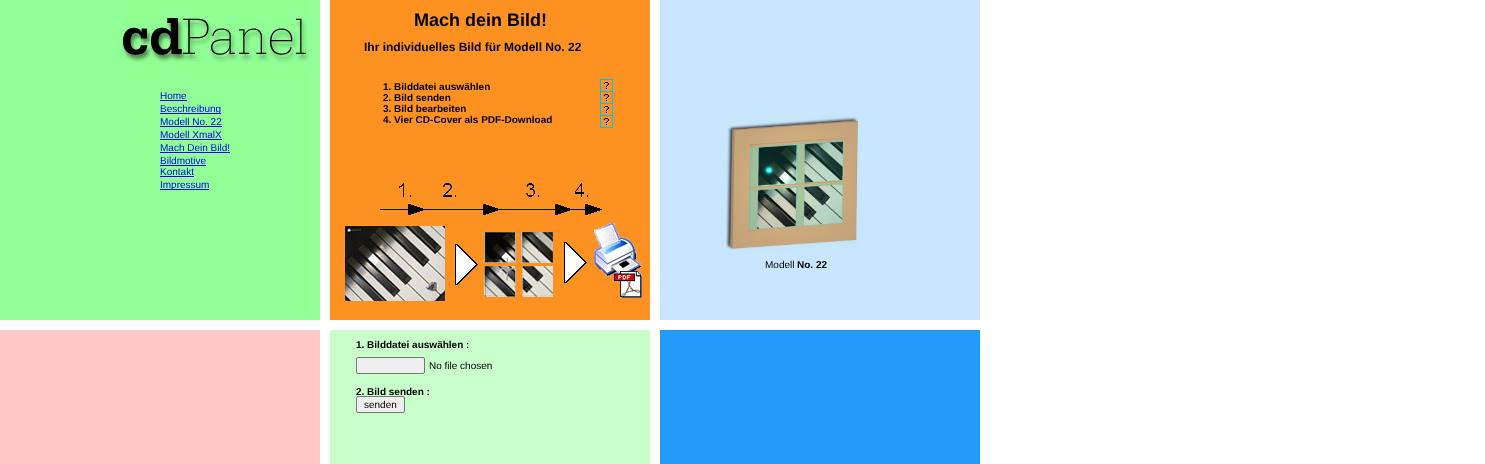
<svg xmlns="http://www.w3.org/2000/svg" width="1485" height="464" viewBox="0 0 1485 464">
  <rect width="100%" height="100%" fill="#fff"/>
  <path d="M0 0h320v320H0z" fill="#91ff95"/>
  <path d="M330 0h320v320H330z" fill="#fd9223"/>
  <path d="M660 0h320v320H660z" fill="#c8e6ff"/>
  <image x="726" y="115" width="133" height="136" href="img/1.png"/>
  <image x="120" y="6" width="190" height="69" href="img/2.png"/>
  <path d="M160 100h27v1H160z" fill="#00e"/>
  <path d="M160 113h61v1H160z" fill="#00e"/>
  <path d="M160 126h62v1H160z" fill="#00e"/>
  <path d="M160 139h62v1H160z" fill="#00e"/>
  <path d="M160 152h70v1H160z" fill="#00e"/>
  <path d="M160 165h46v1H160z" fill="#00e"/>
  <path d="M160 176h34v1H160z" fill="#00e"/>
  <path d="M160 189h49v1H160z" fill="#00e"/>
  <image x="600" y="79" width="13" height="13" href="img/3.png"/>
  <image x="600" y="92" width="13" height="12" href="img/4.png"/>
  <image x="600" y="104" width="13" height="12" href="img/4.png"/>
  <image x="600" y="116" width="13" height="12" href="img/4.png"/>
  <image x="380" y="183" width="222" height="32" href="img/5.png"/>
  <image x="345" y="223" width="297" height="78" href="img/6.png"/>
  <path d="M0 330h320v134H0z" fill="#ffc9c8"/>
  <path d="M330 330h320v134H330z" fill="#c8ffca"/>
  <path d="M660 330h320v134H660z" fill="#239bfd"/>
  <rect x="356.5" y="357.5" width="68" height="16" rx="1.5" fill="#efefef" stroke="#767676"/>
  <rect x="356.5" y="396.5" width="48" height="16" rx="1.5" fill="#efefef" stroke="#767676"/>
  <text x="414" y="26" font-family="Liberation Sans" font-size="18" font-weight="bold" fill="#000">Mach dein Bild!</text>
  <text x="364" y="51" font-family="Liberation Sans" font-size="12" font-weight="bold" fill="#000">Ihr individuelles Bild für Modell No. 22</text>
  <g font-family="Liberation Sans" font-size="10" fill="#00e">
    <text x="160" y="99">Home</text>
    <text x="160" y="112">Beschreibung</text>
    <text x="160" y="125">Modell No. 22</text>
    <text x="160" y="138">Modell XmalX</text>
    <text x="160" y="151">Mach Dein Bild!</text>
    <text x="160" y="164">Bildmotive</text>
    <text x="160" y="175">Kontakt</text>
    <text x="160" y="188">Impressum</text>
  </g>
  <g font-family="Liberation Sans" font-size="10" font-weight="bold" fill="#000">
    <text x="383" y="90">1. Bilddatei auswählen</text>
    <text x="383" y="101">2. Bild senden</text>
    <text x="383" y="112">3. Bild bearbeiten</text>
    <text x="383" y="123">4. Vier CD-Cover als PDF-Download</text>
  </g>
  <text x="765" y="268" font-family="Liberation Sans" font-size="10" fill="#000">Modell</text>
  <g font-family="Liberation Sans" font-size="10" font-weight="bold" fill="#000">
    <text x="797" y="268">No. 22</text>
    <text x="356" y="348">1. Bilddatei auswählen :</text>
  </g>
  <g font-family="Liberation Sans" font-size="10" fill="#000">
    <text x="429" y="369">No file chosen</text>
    <text x="364" y="408">senden</text>
  </g>
  <text x="356" y="395" font-family="Liberation Sans" font-size="10" font-weight="bold" fill="#000">2. Bild senden :</text>
</svg>
